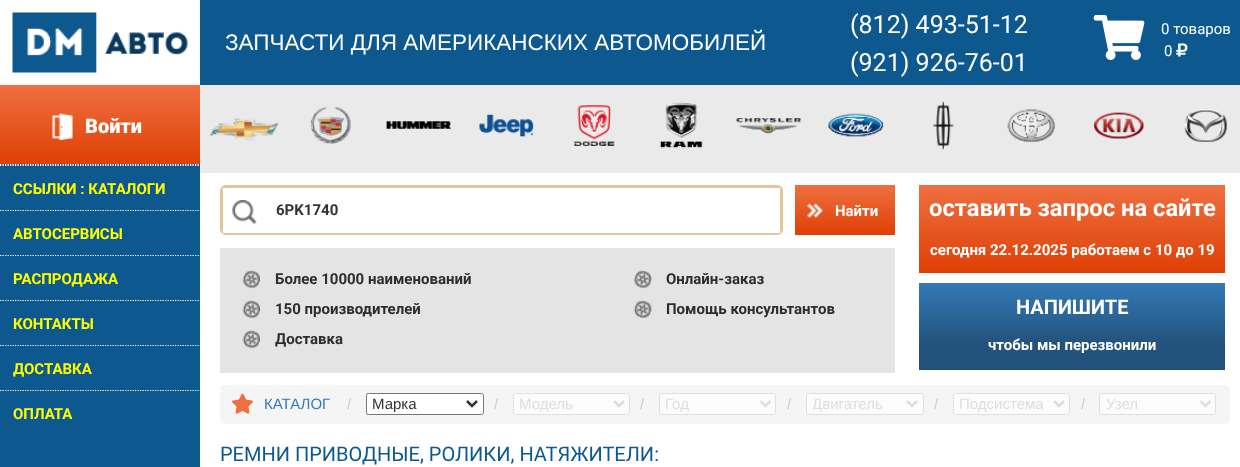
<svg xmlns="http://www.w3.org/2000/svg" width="1240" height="467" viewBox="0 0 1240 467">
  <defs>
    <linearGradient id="g1" gradientUnits="userSpaceOnUse" x1="100" y1="85" x2="100" y2="164"><stop offset="0" stop-color="#ef6f40"/><stop offset="1" stop-color="#df4005"/></linearGradient>
    <linearGradient id="g2" gradientUnits="userSpaceOnUse" x1="1072" y1="185" x2="1072" y2="273"><stop offset="0" stop-color="#ef6f40"/><stop offset="1" stop-color="#df4005"/></linearGradient>
    <linearGradient id="g3" gradientUnits="userSpaceOnUse" x1="1072" y1="370" x2="1072" y2="283"><stop offset="0.3" stop-color="#23527c"/><stop offset="1" stop-color="#337ab7"/></linearGradient>
    <clipPath id="clip1"><path d="M813 394h90v20H813z"/></clipPath>
  </defs>
  <rect width="100%" height="100%" fill="#0c588f"/>
  <path d="M0 0h200v85H0z" fill="#fff"/>
  <image x="12" y="12" width="176" height="61" href="img/1.png"/>
  <path d="M0 85h200v79H0z" fill="url(#g1)"/>
  <image x="52" y="113" width="21" height="27" href="img/2.png"/>
  <path d="M0 164.5H200" fill="none" stroke="#fff" stroke-width="1.2" stroke-dasharray="1.25 1.25"/>
  <path d="M0 165.5H200" fill="none" stroke="#fff" stroke-width="1.2" stroke-dasharray="1.25 1.25"/>
  <path d="M0 210.5H200" fill="none" stroke="#fff" stroke-width="1.2" stroke-dasharray="1.25 1.25"/>
  <path d="M0 255.5H200" fill="none" stroke="#fff" stroke-width="1.2" stroke-dasharray="1.25 1.25"/>
  <path d="M0 300.5H200" fill="none" stroke="#fff" stroke-width="1.2" stroke-dasharray="1.25 1.25"/>
  <path d="M0 345.5H200" fill="none" stroke="#fff" stroke-width="1.2" stroke-dasharray="1.25 1.25"/>
  <path d="M0 390.5H200" fill="none" stroke="#fff" stroke-width="1.2" stroke-dasharray="1.25 1.25"/>
  <path d="M200 173h1040v294H200z" fill="#fff"/>
  <image x="1093" y="15" width="52" height="45" href="img/3.png"/>
  <image x="1176" y="43" width="12" height="14" href="img/4.png"/>
  <path d="M200 85h1040v88H200z" fill="#eaeaea"/>
  <image x="209" y="118" width="70" height="23" href="img/5.png"/>
  <image x="310" y="107" width="41" height="37" href="img/6.png"/>
  <image x="386" y="121" width="65" height="8" href="img/7.png"/>
  <image x="479" y="114" width="55" height="23" href="img/8.png"/>
  <image x="574" y="105" width="41" height="41" href="img/9.png"/>
  <image x="659" y="102" width="44" height="47" href="img/10.png"/>
  <image x="736" y="118" width="65" height="16" href="img/11.png"/>
  <image x="828" y="113" width="56" height="24" href="img/12.png"/>
  <image x="933" y="101" width="21" height="49" href="img/13.png"/>
  <image x="1007" y="109" width="48" height="33" href="img/14.png"/>
  <image x="1094" y="112" width="50" height="27" href="img/15.png"/>
  <image x="1184" y="109" width="43" height="33" href="img/16.png"/>
  <rect x="221.5" y="186.5" width="560" height="47" rx="4.5" fill="none" stroke="#e2c697" stroke-width="3"/>
  <path d="M223 188h557v45H223z" fill="#fff"/>
  <image x="232" y="200" width="25" height="24" href="img/17.png"/>
  <image x="795" y="185" width="100" height="50" href="img/18.png"/>
  <path d="M220 248h675v125H220z" fill="#e4e4e4"/>
  <image x="242" y="270" width="18" height="19" href="img/19.png"/>
  <image x="242" y="300" width="18" height="19" href="img/19.png"/>
  <image x="242" y="330" width="18" height="19" href="img/19.png"/>
  <image x="633" y="270" width="19" height="19" href="img/20.png"/>
  <image x="633" y="300" width="19" height="19" href="img/20.png"/>
  <path d="M919 185h306v88H919z" fill="url(#g2)"/>
  <path d="M919 283h306v87H919z" fill="url(#g3)"/>
  <rect x="220" y="385" width="1010" height="39" rx="5" fill="#f5f5f5"/>
  <image x="232" y="393" width="21" height="21" href="img/21.png"/>
  <rect x="366.5" y="393.5" width="117" height="21" rx="2" fill="#fff" stroke="#767676"/>
  <path d="M467 401L472 406L477 401" fill="none" stroke="#333" stroke-width="2.5"/>
  <rect x="513.5" y="393.5" width="116" height="21" rx="2" fill="#fcfcfc" stroke="#dfdfdf"/>
  <path d="M614 401L619 406L624 401" fill="none" stroke="#ddd" stroke-width="2.5"/>
  <rect x="659.5" y="393.5" width="116" height="21" rx="2" fill="#fcfcfc" stroke="#dfdfdf"/>
  <path d="M760.5 401L765.5 406L770.5 401" fill="none" stroke="#ddd" stroke-width="2.5"/>
  <rect x="806.5" y="393.5" width="117" height="21" rx="2" fill="#fcfcfc" stroke="#dfdfdf"/>
  <path d="M907 401L912 406L917 401" fill="none" stroke="#ddd" stroke-width="2.5"/>
  <rect x="953.5" y="393.5" width="116" height="21" rx="2" fill="#fcfcfc" stroke="#dfdfdf"/>
  <path d="M1054 401L1059 406L1064 401" fill="none" stroke="#ddd" stroke-width="2.5"/>
  <rect x="1099.5" y="393.5" width="116" height="21" rx="2" fill="#fcfcfc" stroke="#dfdfdf"/>
  <path d="M1200.5 401L1205.5 406L1210.5 401" fill="none" stroke="#ddd" stroke-width="2.5"/>
  <text x="85" y="133" font-family="Roboto" font-size="20" font-weight="900" fill="#fff">Войти</text>
  <g font-family="Roboto" font-size="15" font-weight="bold" fill="#ff0">
    <text x="13" y="194">ССЫЛКИ : КАТАЛОГИ</text>
    <text x="13" y="239">АВТОСЕРВИСЫ</text>
    <text x="13" y="284">РАСПРОДАЖА</text>
    <text x="13" y="329">КОНТАКТЫ</text>
    <text x="13" y="374">ДОСТАВКА</text>
    <text x="13" y="419">ОПЛАТА</text>
  </g>
  <text x="225" y="50" font-family="Liberation Sans" font-size="22.5" fill="#fff">ЗАПЧАСТИ ДЛЯ АМЕРИКАНСКИХ АВТОМОБИЛЕЙ</text>
  <g font-family="Roboto" font-size="25" fill="#fff">
    <text x="850" y="33">(812) 493-51-12</text>
    <text x="850" y="71">(921) 926-76-01</text>
  </g>
  <g font-family="Roboto" font-size="15" fill="#fff">
    <text x="1161" y="34">0 товаров</text>
    <text x="1164" y="56">0</text>
  </g>
  <text x="276" y="215" font-family="Roboto" font-size="15" font-weight="bold" fill="#333">6PK1740</text>
  <text x="835" y="216" font-family="Roboto" font-size="15" font-weight="bold" fill="#fff">Найти</text>
  <g font-family="Roboto" font-size="15" font-weight="bold" fill="#2e2d2d">
    <text x="275" y="284">Более 10000 наименований</text>
    <text x="275" y="314">150 производителей</text>
    <text x="275" y="344">Доставка</text>
    <text x="666" y="284">Онлайн-заказ</text>
    <text x="666" y="314">Помощь консультантов</text>
  </g>
  <text x="929" y="216" font-family="Roboto" font-size="23.75" font-weight="bold" fill="#fff">оставить запрос на сайте</text>
  <text x="930" y="255" font-family="Roboto" font-size="15" font-weight="bold" fill="#fff">сегодня 22.12.2025 работаем с 10 до 19</text>
  <text x="1016" y="314" font-family="Roboto" font-size="20" font-weight="bold" fill="#fff">НАПИШИТЕ</text>
  <text x="988" y="350" font-family="Roboto" font-size="15" font-weight="bold" fill="#fff">чтобы мы перезвонили</text>
  <text x="264" y="409" font-family="Liberation Sans" font-size="15" fill="#337ab7">КАТАЛОГ</text>
  <text x="347" y="409" font-family="Liberation Sans" font-size="15" fill="#ccc">/</text>
  <text x="372" y="409" font-family="Liberation Sans" font-size="15" fill="#333">Марка</text>
  <text x="494" y="409" font-family="Liberation Sans" font-size="15" fill="#ccc">/</text>
  <text x="519" y="409" font-family="Liberation Sans" font-size="15" fill="#ddd">Модель</text>
  <text x="640" y="409" font-family="Liberation Sans" font-size="15" fill="#ccc">/</text>
  <text x="665" y="409" font-family="Liberation Sans" font-size="15" fill="#ddd">Год</text>
  <text x="787" y="409" font-family="Liberation Sans" font-size="15" fill="#ccc">/</text>
  <g clip-path="url(#clip1)">
    <text x="812" y="409" font-family="Liberation Sans" font-size="15" fill="#ddd">Двигатель</text>
  </g>
  <text x="934" y="409" font-family="Liberation Sans" font-size="15" fill="#ccc">/</text>
  <text x="959" y="409" font-family="Liberation Sans" font-size="15" fill="#ddd">Подсистема</text>
  <text x="1081" y="409" font-family="Liberation Sans" font-size="15" fill="#ccc">/</text>
  <text x="1106" y="409" font-family="Liberation Sans" font-size="15" fill="#ddd">Узел</text>
  <text x="220" y="461" font-family="Roboto" font-size="20" fill="#0c588f">РЕМНИ ПРИВОДНЫЕ, РОЛИКИ, НАТЯЖИТЕЛИ:</text>
</svg>
